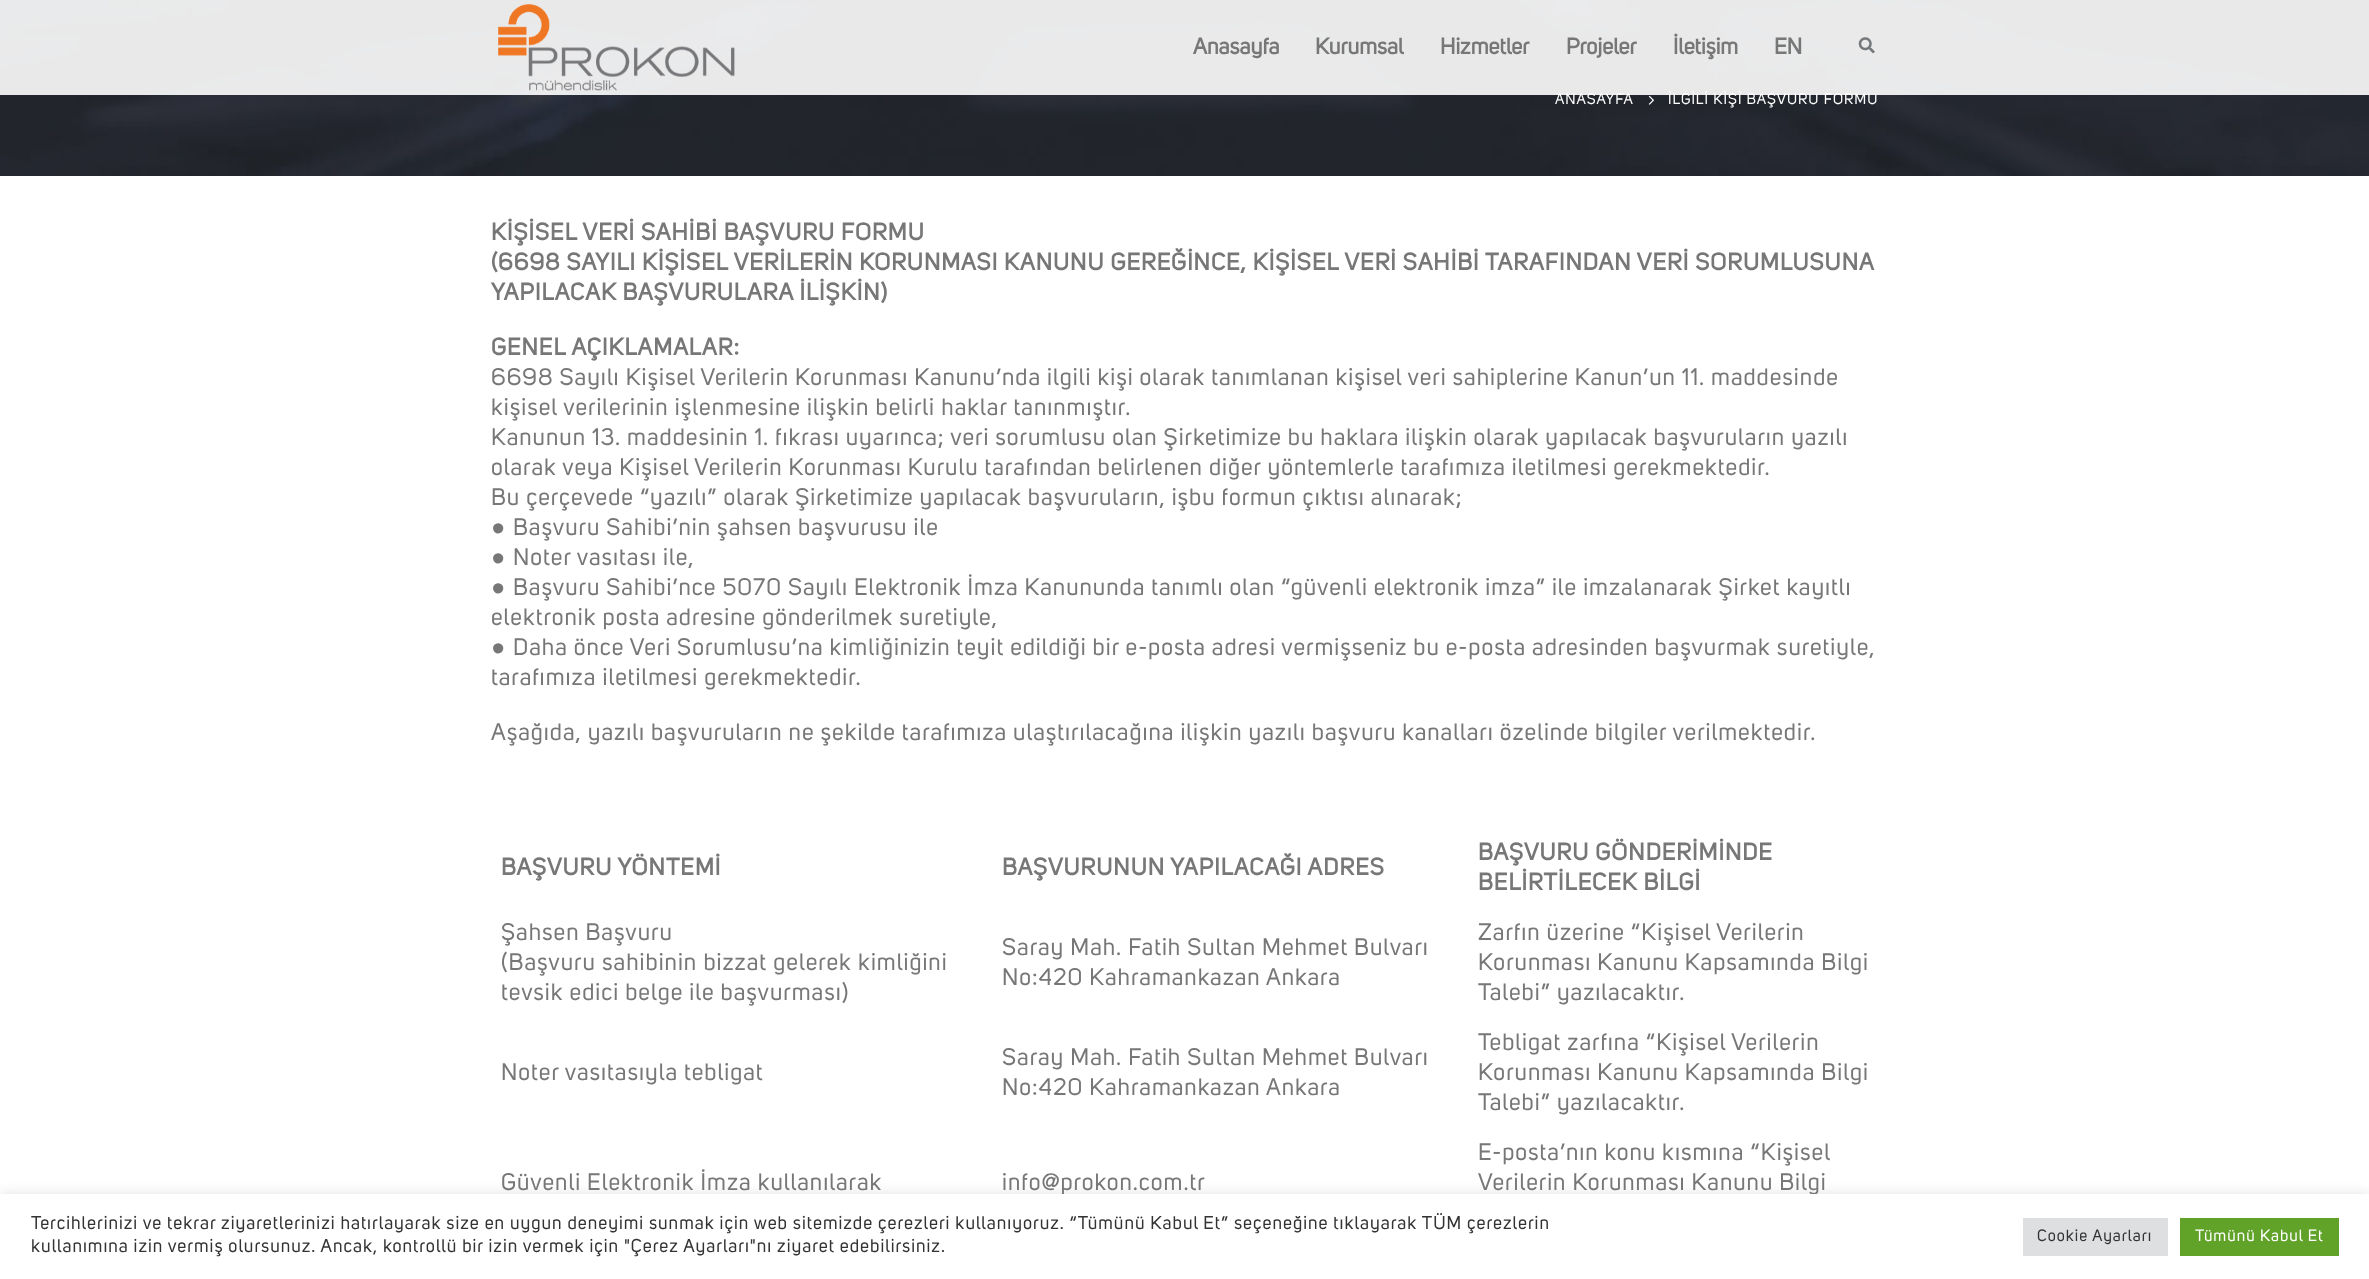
<svg xmlns="http://www.w3.org/2000/svg" width="2369" height="1279" viewBox="0 0 2369 1279">
  <rect width="100%" height="100%" fill="#fff"/>
  <image x="0" y="0" width="2369" height="176" href="img/3.png"/>
  <image x="1648" y="95" width="6" height="10" href="img/4.png"/>
  <path d="M0 1193h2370v86H0z" fill="#acabab4d" filter="blur(6px)"/>
  <g font-family="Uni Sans" font-size="15" letter-spacing="1" fill="#fff">
    <text x="1555" y="104">ANASAYFA</text>
    <text x="1668" y="104">İLGİLİ KİŞİ BAŞVURU FORMU</text>
  </g>
  <path d="M0 0h2369v95H0z" fill="#ffffffe6"/>
  <image x="1858" y="37" width="17" height="17" href="img/2.png"/>
  <g font-family="Uni Sans" font-size="22.5" font-weight="bold" fill="#777">
    <text x="1774" y="54">EN</text>
    <text x="1673" y="54">İletişim</text>
    <text x="1566" y="54">Projeler</text>
    <text x="1440" y="54">Hizmetler</text>
    <text x="1315" y="54">Kurumsal</text>
    <text x="1193" y="54">Anasayfa</text>
  </g>
  <image x="498" y="4" width="237" height="87" href="img/1.png"/>
  <g font-family="Uni Sans" font-size="23.75" font-weight="bold" letter-spacing="1" fill="#777">
    <text x="491" y="240">KİŞİSEL VERİ SAHİBİ BAŞVURU FORMU</text>
    <text x="491" y="270">(6698 SAYILI KİŞİSEL VERİLERİN KORUNMASI KANUNU GEREĞİNCE, KİŞİSEL VERİ SAHİBİ TARAFINDAN VERİ SORUMLUSUNA</text>
    <text x="491" y="300">YAPILACAK BAŞVURULARA İLİŞKİN)</text>
    <text x="491" y="355">GENEL AÇIKLAMALAR:</text>
  </g>
  <g font-family="Uni Sans" font-size="23.75" letter-spacing="1" fill="#777">
    <text x="491" y="385">6698 Sayılı Kişisel Verilerin Korunması Kanunu’nda ilgili kişi olarak tanımlanan kişisel veri sahiplerine Kanun’un 11. maddesinde</text>
    <text x="491" y="415" word-spacing="0.25">kişisel verilerinin işlenmesine ilişkin belirli haklar tanınmıştır.</text>
    <text x="491" y="445">Kanunun 13. maddesinin 1. fıkrası uyarınca; veri sorumlusu olan Şirketimize bu haklara ilişkin olarak yapılacak başvuruların yazılı</text>
    <text x="491" y="475">olarak veya Kişisel Verilerin Korunması Kurulu tarafından belirlenen diğer yöntemlerle tarafımıza iletilmesi gerekmektedir.</text>
    <text x="491" y="505">Bu çerçevede “yazılı” olarak Şirketimize yapılacak başvuruların, işbu formun çıktısı alınarak;</text>
  </g>
  <text x="491" y="535" font-family="Liberation Sans" font-size="23.75" letter-spacing="1" fill="#777">●</text>
  <text x="513" y="535" font-family="Uni Sans" font-size="23.75" letter-spacing="1" fill="#777">Başvuru Sahibi’nin şahsen başvurusu ile</text>
  <text x="491" y="565" font-family="Liberation Sans" font-size="23.75" letter-spacing="1" fill="#777">●</text>
  <text x="513" y="565" font-family="Uni Sans" font-size="23.75" letter-spacing="1" fill="#777">Noter vasıtası ile,</text>
  <text x="491" y="595" font-family="Liberation Sans" font-size="23.75" letter-spacing="1" fill="#777">●</text>
  <g font-family="Uni Sans" font-size="23.75" letter-spacing="1" fill="#777">
    <text x="513" y="595">Başvuru Sahibi’nce 5070 Sayılı Elektronik İmza Kanununda tanımlı olan “güvenli elektronik imza” ile imzalanarak Şirket kayıtlı</text>
    <text x="491" y="625">elektronik posta adresine gönderilmek suretiyle,</text>
  </g>
  <text x="491" y="655" font-family="Liberation Sans" font-size="23.75" letter-spacing="1" fill="#777">●</text>
  <g font-family="Uni Sans" font-size="23.75" letter-spacing="1" fill="#777">
    <text x="513" y="655">Daha önce Veri Sorumlusu’na kimliğinizin teyit edildiği bir e-posta adresi vermişseniz bu e-posta adresinden başvurmak suretiyle,</text>
    <text x="491" y="685" word-spacing="0.25">tarafımıza iletilmesi gerekmektedir.</text>
    <text x="491" y="740">Aşağıda, yazılı başvuruların ne şekilde tarafımıza ulaştırılacağına ilişkin yazılı başvuru kanalları özelinde bilgiler verilmektedir.</text>
  </g>
  <g font-family="Uni Sans" font-size="23.75" font-weight="bold" letter-spacing="1" fill="#777">
    <text x="501" y="875">BAŞVURU YÖNTEMİ</text>
    <text x="1002" y="875">BAŞVURUNUN YAPILACAĞI ADRES</text>
    <text x="1478" y="860">BAŞVURU GÖNDERİMİNDE</text>
    <text x="1478" y="890">BELİRTİLECEK BİLGİ</text>
  </g>
  <g font-family="Uni Sans" font-size="23.75" letter-spacing="1" fill="#777">
    <text x="501" y="940">Şahsen Başvuru</text>
    <text x="501" y="970" word-spacing="0.25">(Başvuru sahibinin bizzat gelerek kimliğini</text>
    <text x="501" y="1000">tevsik edici belge ile başvurması)</text>
    <text x="1002" y="955">Saray Mah. Fatih Sultan Mehmet Bulvarı</text>
    <text x="1002" y="985">No:420 Kahramankazan Ankara</text>
    <text x="1478" y="940">Zarfın üzerine “Kişisel Verilerin</text>
    <text x="1478" y="970">Korunması Kanunu Kapsamında Bilgi</text>
    <text x="1478" y="1000">Talebi” yazılacaktır.</text>
    <text x="501" y="1080">Noter vasıtasıyla tebligat</text>
    <text x="1002" y="1065">Saray Mah. Fatih Sultan Mehmet Bulvarı</text>
    <text x="1002" y="1095">No:420 Kahramankazan Ankara</text>
    <text x="1478" y="1050">Tebligat zarfına “Kişisel Verilerin</text>
    <text x="1478" y="1080">Korunması Kanunu Kapsamında Bilgi</text>
    <text x="1478" y="1110">Talebi” yazılacaktır.</text>
    <text x="501" y="1190">Güvenli Elektronik İmza kullanılarak</text>
    <text x="1002" y="1190">info@prokon.com.tr</text>
    <text x="1478" y="1160">E-posta’nın konu kısmına “Kişisel</text>
    <text x="1478" y="1190">Verilerin Korunması Kanunu Bilgi</text>
  </g>
  <path d="M0 1194h2369v85H0z" fill="#fff"/>
  <g font-family="Uni Sans" font-size="18.33" letter-spacing="1" fill="#333">
    <text x="31" y="1229">Tercihlerinizi ve tekrar ziyaretlerinizi hatırlayarak size en uygun deneyimi sunmak için web sitemizde çerezleri kullanıyoruz. “Tümünü Kabul Et” seçeneğine tıklayarak TÜM çerezlerin</text>
    <text x="31" y="1252">kullanımına izin vermiş olursunuz. Ancak, kontrollü bir izin vermek için "Çerez Ayarları"nı ziyaret edebilirsiniz.</text>
  </g>
  <path d="M2023 1218h145v38H2023z" fill="#dedfe0"/>
  <text x="2037" y="1241" font-family="Uni Sans" font-size="16.25" letter-spacing="1" fill="#333">Cookie Ayarları</text>
  <path d="M2180 1218h159v38H2180z" fill="#61a229"/>
  <text x="2195" y="1241" font-family="Uni Sans" font-size="16.25" letter-spacing="1" fill="#fff">Tümünü Kabul Et</text>
</svg>
